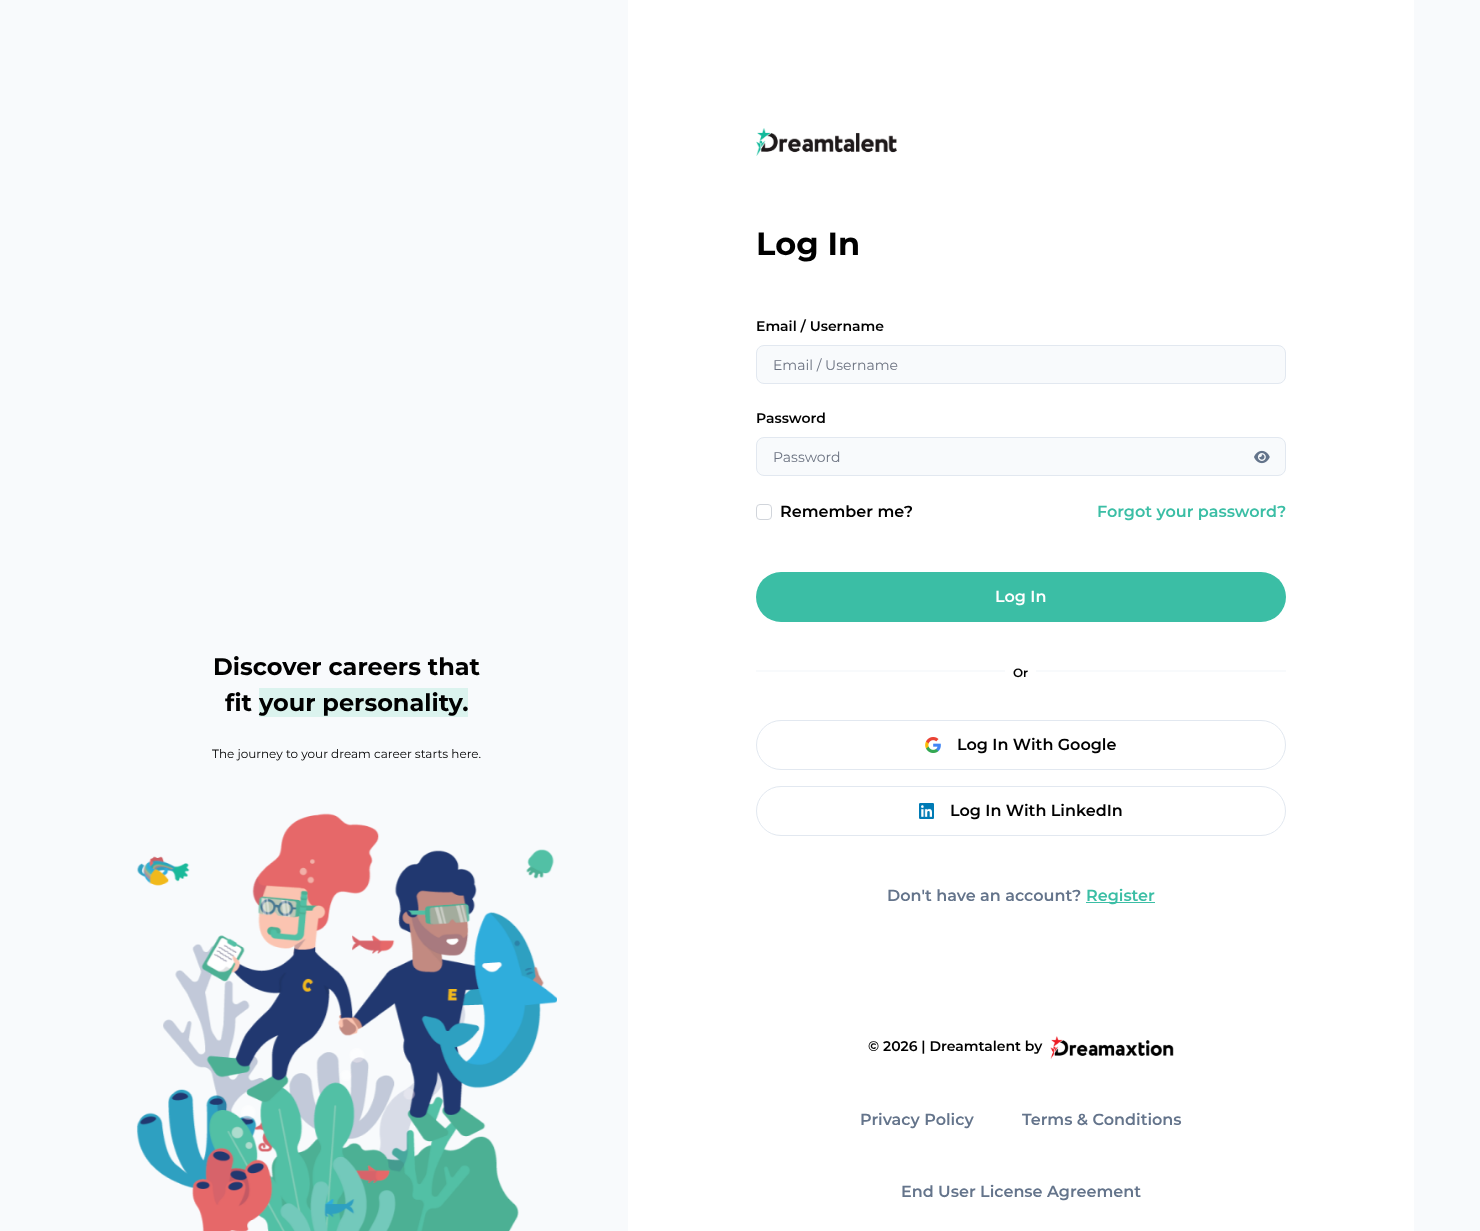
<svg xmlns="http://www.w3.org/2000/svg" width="1480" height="1231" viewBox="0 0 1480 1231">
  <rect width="100%" height="100%" fill="#f8fafc"/>
  <path d="M259 688h209v29H259z" fill="#dbf3ee"/>
  <image x="136" y="813" width="421" height="418" href="img/1.png"/>
  <path d="M628 0h786v1231H628z" fill="#fff"/>
  <image x="756" y="128" width="141" height="28" href="img/2.png"/>
  <rect x="756.5" y="345.5" width="529" height="38" rx="7.5" fill="#f8fafc" stroke="#e2e8f0"/>
  <rect x="756.5" y="437.5" width="529" height="38" rx="7.5" fill="#f8fafc" stroke="#e2e8f0"/>
  <image x="1254" y="450" width="16" height="14" href="img/3.png"/>
  <rect x="756.5" y="504.5" width="15" height="15" rx="3.5" fill="none" stroke="#d1d5db"/>
  <rect x="756" y="572" width="530" height="50" rx="25" fill="#3bbea5"/>
  <path d="M756 670h530v2H756z" fill="#f8fafc"/>
  <path d="M1005 670h31v2H1005z" fill="#fff"/>
  <rect x="756.5" y="720.5" width="529" height="49" rx="24.5" fill="none" stroke="#e2e8f0"/>
  <image x="925" y="737" width="16" height="16" href="img/4.png"/>
  <rect x="756.5" y="786.5" width="529" height="49" rx="24.5" fill="none" stroke="#e2e8f0"/>
  <image x="919" y="803" width="15" height="16" href="img/5.png"/>
  <path d="M1086 902h69v1H1086z" fill="#3bbea5"/>
  <image x="1050" y="1036" width="124" height="24" href="img/6.png"/>
  <g font-family="Montserrat" font-size="24" font-weight="bold" fill="#000">
    <text x="213" y="675">Discover careers that</text>
    <text x="225" y="711">fit</text>
    <text x="259" y="711">your personality.</text>
  </g>
  <text x="212" y="758" font-family="Montserrat" font-size="12" fill="#000">The journey to your dream career starts here.</text>
  <text x="756" y="255" font-family="Montserrat" font-size="32" font-weight="bold" fill="#000">Log In</text>
  <text x="756" y="331" font-family="Montserrat" font-size="14" font-weight="600" fill="#000">Email / Username</text>
  <text x="773" y="370" font-family="Montserrat" font-size="14" fill="#6b7280">Email / Username</text>
  <text x="756" y="423" font-family="Montserrat" font-size="14" font-weight="600" fill="#000">Password</text>
  <text x="773" y="462" font-family="Montserrat" font-size="14" fill="#6b7280">Password</text>
  <text x="780" y="517" font-family="Montserrat" font-size="16" font-weight="600" fill="#000">Remember me?</text>
  <text x="1097" y="517" font-family="Montserrat" font-size="16" font-weight="600" fill="#3bbea5">Forgot your password?</text>
  <text x="995" y="602" font-family="Montserrat" font-size="16" font-weight="600" fill="#fff">Log In</text>
  <text x="1013" y="677" font-family="Montserrat" font-size="12" font-weight="600" fill="#000">Or</text>
  <g font-family="Montserrat" font-size="16" font-weight="600" fill="#000">
    <text x="957" y="750">Log In With Google</text>
    <text x="950" y="816">Log In With LinkedIn</text>
  </g>
  <text x="887" y="901" font-family="Montserrat" font-size="16" font-weight="600" fill="#64748b">Don't have an account?</text>
  <text x="1086" y="901" font-family="Montserrat" font-size="16" font-weight="600" fill="#3bbea5">Register</text>
  <text x="868" y="1051" font-family="Montserrat" font-size="14" font-weight="600" fill="#000">© 2026 | Dreamtalent by</text>
  <g font-family="Montserrat" font-size="16" font-weight="600" fill="#64748b">
    <text x="860" y="1125">Privacy Policy</text>
    <text x="1022" y="1125">Terms &amp; Conditions</text>
    <text x="901" y="1197">End User License Agreement</text>
  </g>
</svg>
